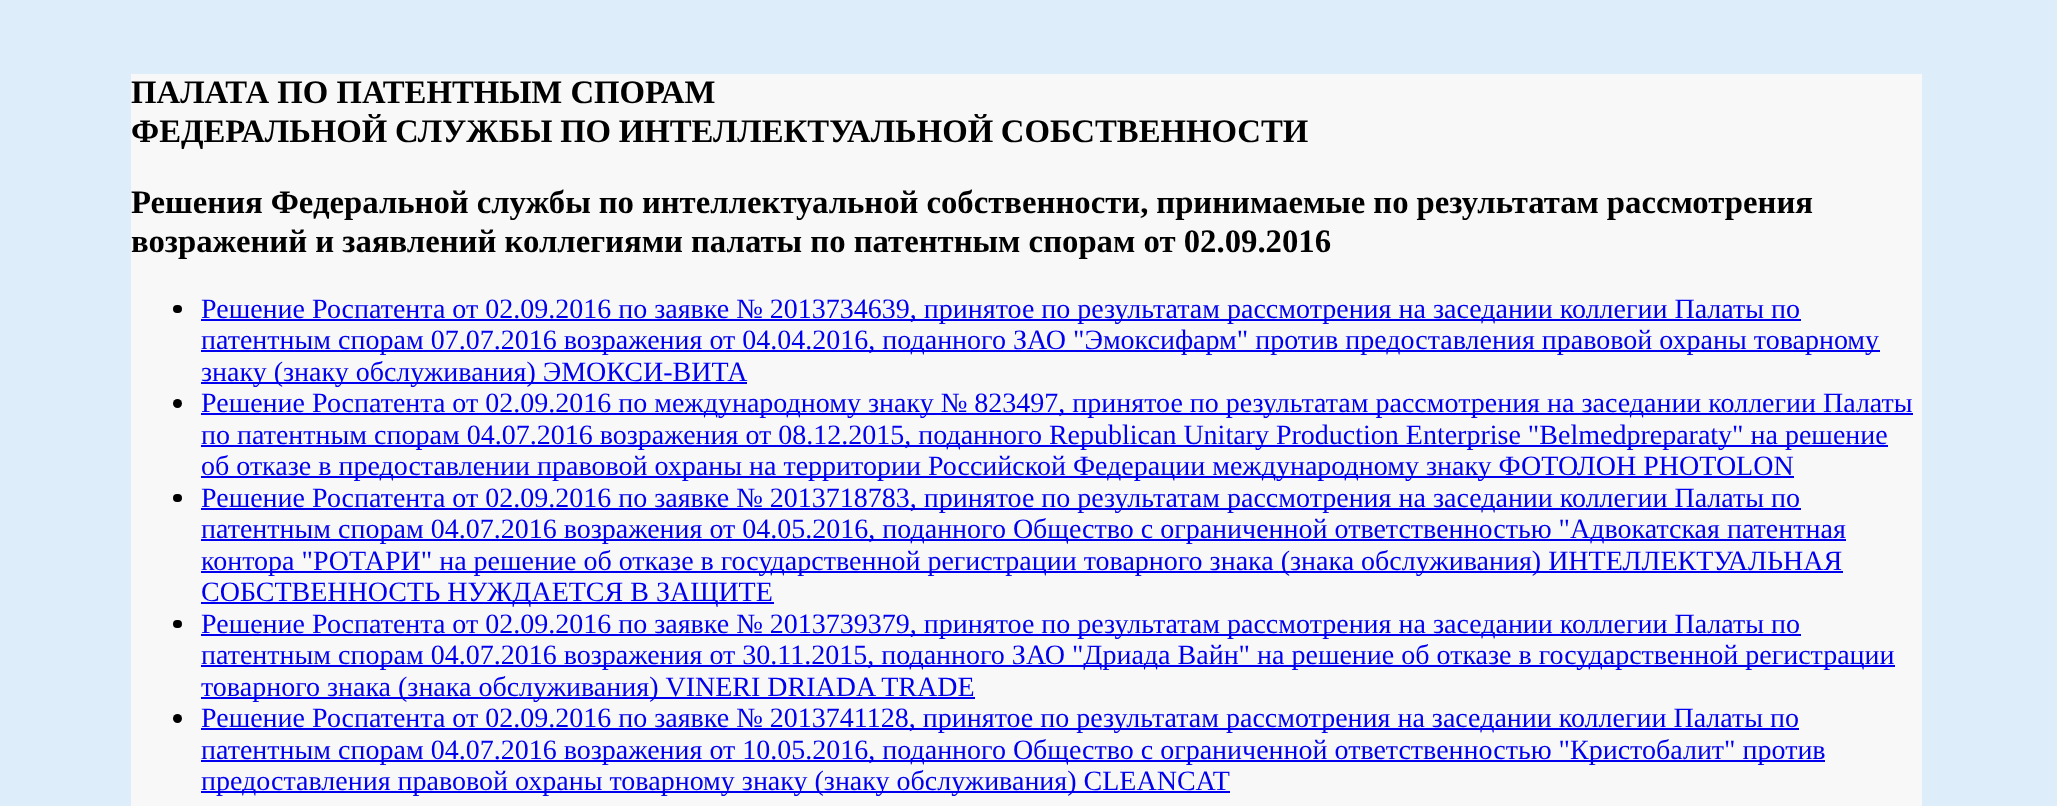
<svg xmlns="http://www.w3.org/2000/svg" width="2057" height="806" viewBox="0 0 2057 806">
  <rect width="100%" height="100%" fill="#ddedfa"/>
  <path d="M131 74h1791v732H131z" fill="#f8f8f8"/>
  <rect x="173" y="305" width="9" height="8" rx="4" fill="#000"/>
  <path d="M201 319h1600v2H201z" fill="#00e"/>
  <path d="M201 350h1679v2H201z" fill="#00e"/>
  <path d="M201 382h546v2H201z" fill="#00e"/>
  <circle cx="177.5" cy="403.5" r="4.5" fill="#000"/>
  <path d="M201 413h1712v2H201z" fill="#00e"/>
  <path d="M201 445h1687v2H201z" fill="#00e"/>
  <path d="M201 476h1593v2H201z" fill="#00e"/>
  <rect x="173" y="494" width="9" height="8" rx="4" fill="#000"/>
  <path d="M201 508h1600v2H201z" fill="#00e"/>
  <path d="M201 539h1645v2H201z" fill="#00e"/>
  <path d="M201 571h1642v2H201z" fill="#00e"/>
  <path d="M201 602h573v2H201z" fill="#00e"/>
  <rect x="173" y="620" width="9" height="8" rx="4" fill="#000"/>
  <path d="M201 634h1600v2H201z" fill="#00e"/>
  <path d="M201 665h1694v2H201z" fill="#00e"/>
  <path d="M201 697h774v2H201z" fill="#00e"/>
  <circle cx="177.5" cy="718.5" r="4.5" fill="#000"/>
  <path d="M201 728h1598v2H201z" fill="#00e"/>
  <path d="M201 760h1624v2H201z" fill="#00e"/>
  <path d="M201 791h1029v2H201z" fill="#00e"/>
  <g font-family="Liberation Serif" font-size="32.75" font-weight="bold" fill="#000">
    <text x="131" y="103">ПАЛАТА ПО ПАТЕНТНЫМ СПОРАМ</text>
    <text x="131" y="142" word-spacing="-0.5">ФЕДЕРАЛЬНОЙ СЛУЖБЫ ПО ИНТЕЛЛЕКТУАЛЬНОЙ СОБСТВЕННОСТИ</text>
    <text x="131" y="213" word-spacing="-0.25">Решения Федеральной службы по интеллектуальной собственности, принимаемые по результатам рассмотрения</text>
    <text x="131" y="252">возражений и заявлений коллегиями палаты по патентным спорам от 02.09.2016</text>
  </g>
  <g font-family="Liberation Serif" font-size="28" fill="#00e">
    <text x="201" y="318">Решение Роспатента от 02.09.2016 по заявке № 2013734639, принятое по результатам рассмотрения на заседании коллегии Палаты по</text>
    <text x="201" y="349">патентным спорам 07.07.2016 возражения от 04.04.2016, поданного ЗАО "Эмоксифарм" против предоставления правовой охраны товарному</text>
    <text x="201" y="381">знаку (знаку обслуживания) ЭМОКСИ-ВИТА</text>
    <text x="201" y="412">Решение Роспатента от 02.09.2016 по международному знаку № 823497, принятое по результатам рассмотрения на заседании коллегии Палаты</text>
    <text x="201" y="444">по патентным спорам 04.07.2016 возражения от 08.12.2015, поданного Republican Unitary Production Enterprise "Belmedpreparaty" на решение</text>
    <text x="201" y="475">об отказе в предоставлении правовой охраны на территории Российской Федерации международному знаку ФОТОЛОН PHOTOLON</text>
    <text x="201" y="507">Решение Роспатента от 02.09.2016 по заявке № 2013718783, принятое по результатам рассмотрения на заседании коллегии Палаты по</text>
    <text x="201" y="538">патентным спорам 04.07.2016 возражения от 04.05.2016, поданного Общество с ограниченной ответственностью "Адвокатская патентная</text>
    <text x="201" y="570">контора "РОТАРИ" на решение об отказе в государственной регистрации товарного знака (знака обслуживания) ИНТЕЛЛЕКТУАЛЬНАЯ</text>
    <text x="201" y="601">СОБСТВЕННОСТЬ НУЖДАЕТСЯ В ЗАЩИТЕ</text>
    <text x="201" y="633">Решение Роспатента от 02.09.2016 по заявке № 2013739379, принятое по результатам рассмотрения на заседании коллегии Палаты по</text>
    <text x="201" y="664">патентным спорам 04.07.2016 возражения от 30.11.2015, поданного ЗАО "Дриада Вайн" на решение об отказе в государственной регистрации</text>
    <text x="201" y="696">товарного знака (знака обслуживания) VINERI DRIADA TRADE</text>
    <text x="201" y="727">Решение Роспатента от 02.09.2016 по заявке № 2013741128, принятое по результатам рассмотрения на заседании коллегии Палаты по</text>
    <text x="201" y="759">патентным спорам 04.07.2016 возражения от 10.05.2016, поданного Общество с ограниченной ответственностью "Кристобалит" против</text>
    <text x="201" y="790">предоставления правовой охраны товарному знаку (знаку обслуживания) CLEANCAT</text>
  </g>
</svg>
